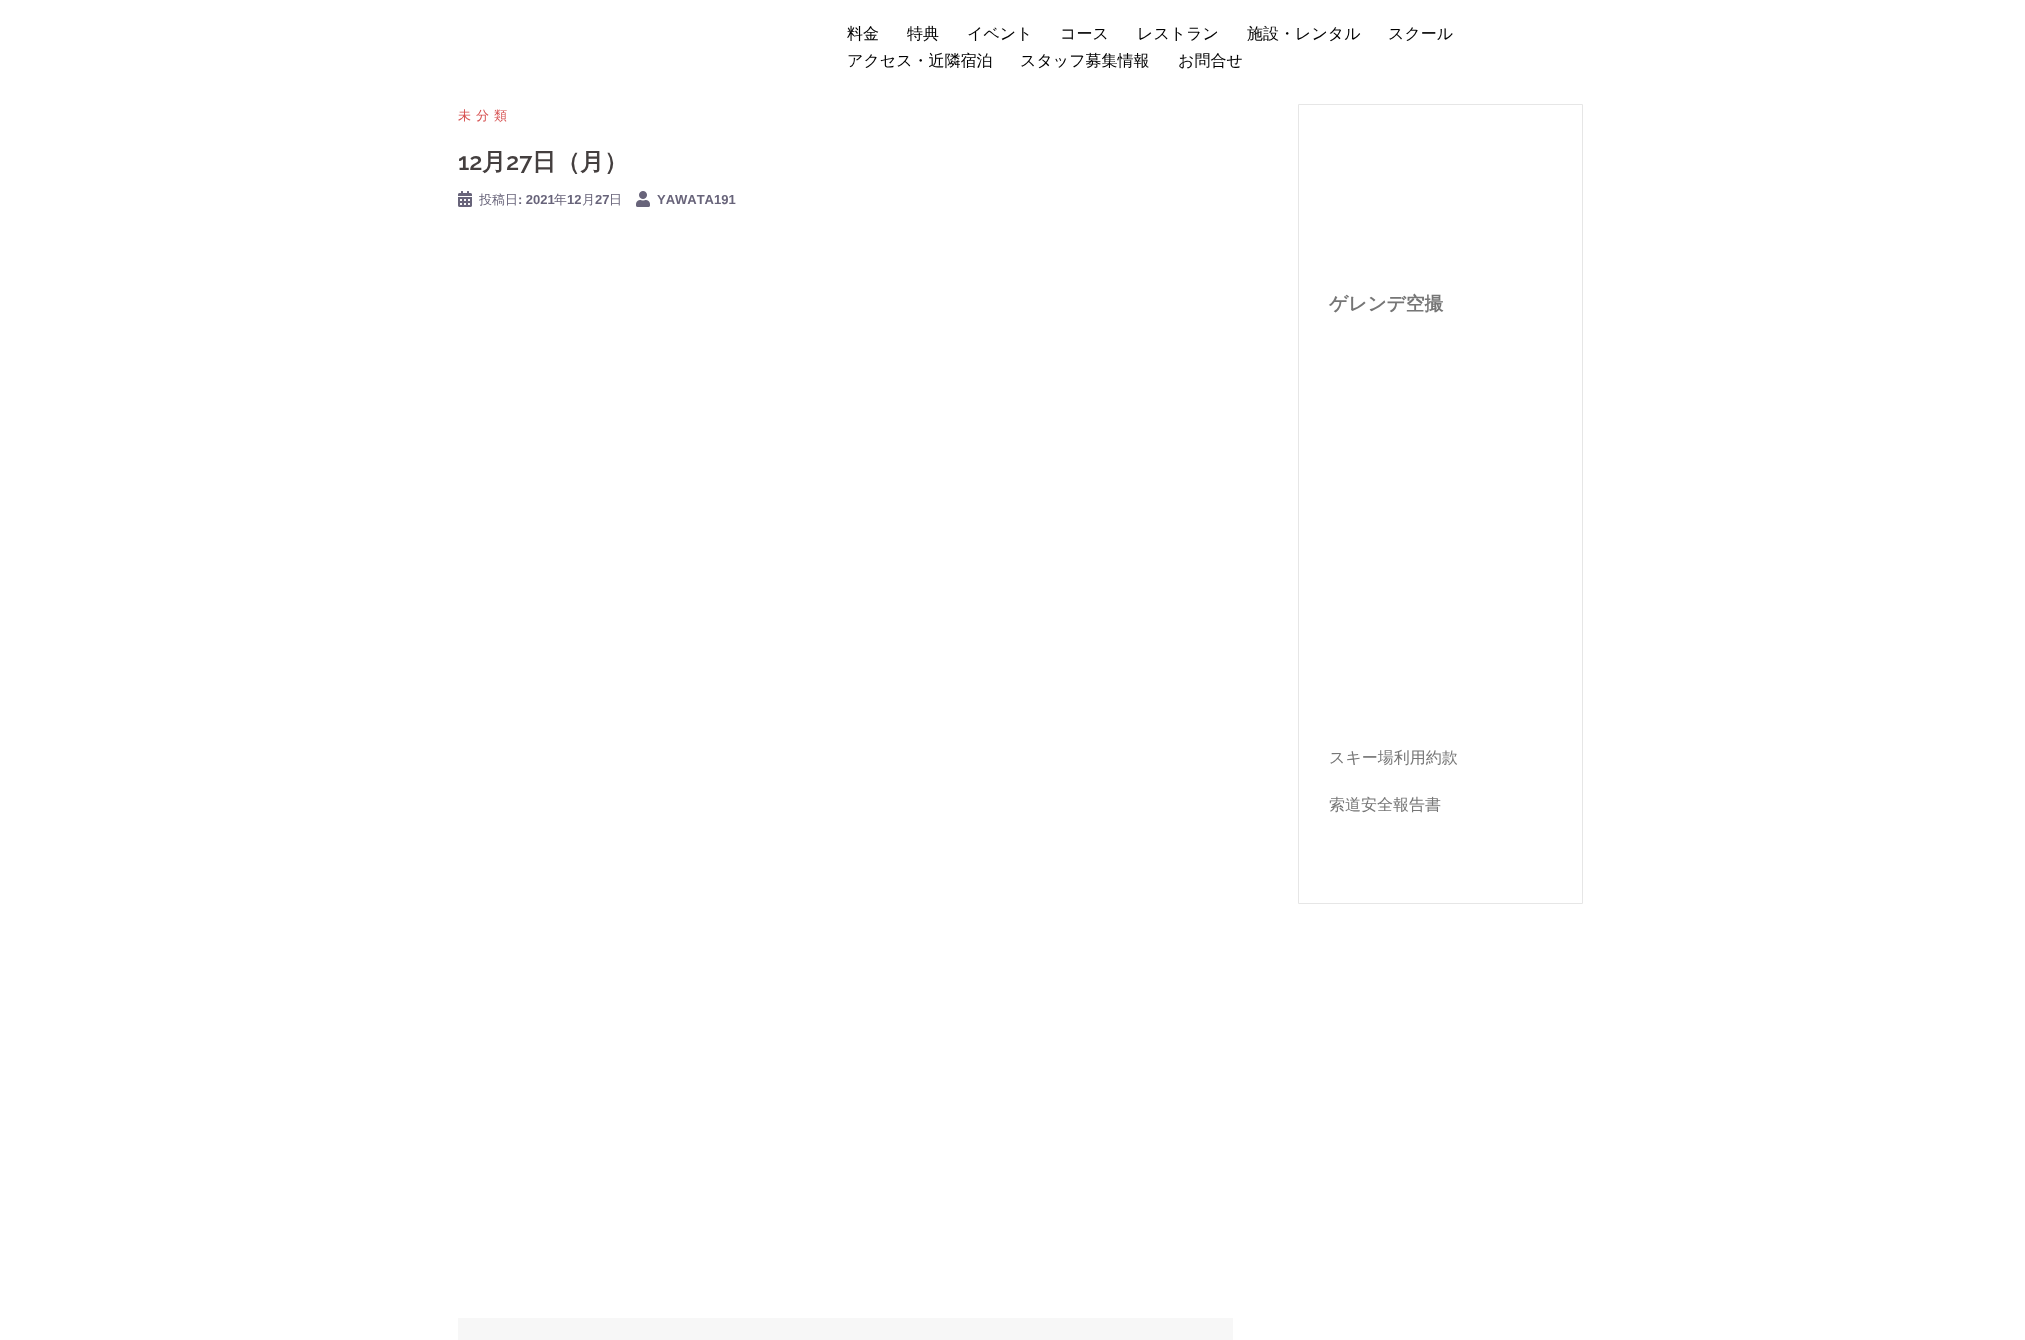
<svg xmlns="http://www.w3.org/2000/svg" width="2025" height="1340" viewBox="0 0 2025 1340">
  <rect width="100%" height="100%" fill="#fff"/>
  <image x="458" y="191" width="14" height="16" href="img/1.png"/>
  <image x="636" y="191" width="14" height="16" href="img/2.png"/>
  <path d="M458 1318h775v22H458z" fill="#f7f7f7"/>
  <path d="M1298.5 104.5h284v799H1298.5z" fill="none" stroke="#e6e6e6"/>
  <g font-family="WenQuanYi Zen Hei" font-size="16" font-weight="500" fill="#000">
    <text x="847" y="39">料金</text>
    <text x="907" y="39">特典</text>
    <text x="967" y="39">イベント</text>
    <text x="1060" y="39">コース</text>
    <text x="1137" y="39">レストラン</text>
    <text x="1247" y="39">施設・レンタル</text>
    <text x="1388" y="39">スクール</text>
    <text x="847" y="66">アクセス・近隣宿泊</text>
    <text x="1020" y="66">スタッフ募集情報</text>
    <text x="1178" y="66">お問合せ</text>
  </g>
  <text x="458" y="120" font-family="WenQuanYi Zen Hei" font-size="13" font-weight="500" letter-spacing="5" fill="#d65050">未分類</text>
  <text x="458" y="170" font-family="Raleway" font-size="24" font-weight="100" fill="#443f3f">12</text>
  <text x="482" y="170" font-family="WenQuanYi Zen Hei" font-size="24" font-weight="bold" fill="#443f3f">月</text>
  <text x="506" y="170" font-family="Raleway" font-size="24" font-weight="100" fill="#443f3f">27</text>
  <text x="532" y="170" font-family="WenQuanYi Zen Hei" font-size="24" font-weight="bold" fill="#443f3f">日（月）</text>
  <text x="479" y="204" font-family="WenQuanYi Zen Hei" font-size="13" font-weight="500" fill="#68647a">投稿日</text>
  <text x="518" y="204" font-family="Ramabhadra" font-size="13" fill="#68647a">: 2021</text>
  <text x="554" y="204" font-family="WenQuanYi Zen Hei" font-size="13" font-weight="500" fill="#68647a">年</text>
  <text x="567" y="204" font-family="Ramabhadra" font-size="13" fill="#68647a">12</text>
  <text x="582" y="204" font-family="WenQuanYi Zen Hei" font-size="13" font-weight="500" fill="#68647a">月</text>
  <text x="595" y="204" font-family="Ramabhadra" font-size="13" fill="#68647a">27</text>
  <text x="609" y="204" font-family="WenQuanYi Zen Hei" font-size="13" font-weight="500" fill="#68647a">日</text>
  <text x="657" y="204" font-family="Ramabhadra" font-size="13" fill="#68647a">YAWATA191</text>
  <text x="1329" y="310" font-family="WenQuanYi Zen Hei" font-size="18.75" font-weight="bold" fill="#767676">ゲレンデ空撮</text>
  <g font-family="WenQuanYi Zen Hei" font-size="16" font-weight="500" fill="#767676">
    <text x="1329" y="763">スキー場利用約款</text>
    <text x="1329" y="810">索道安全報告書</text>
  </g>
</svg>
